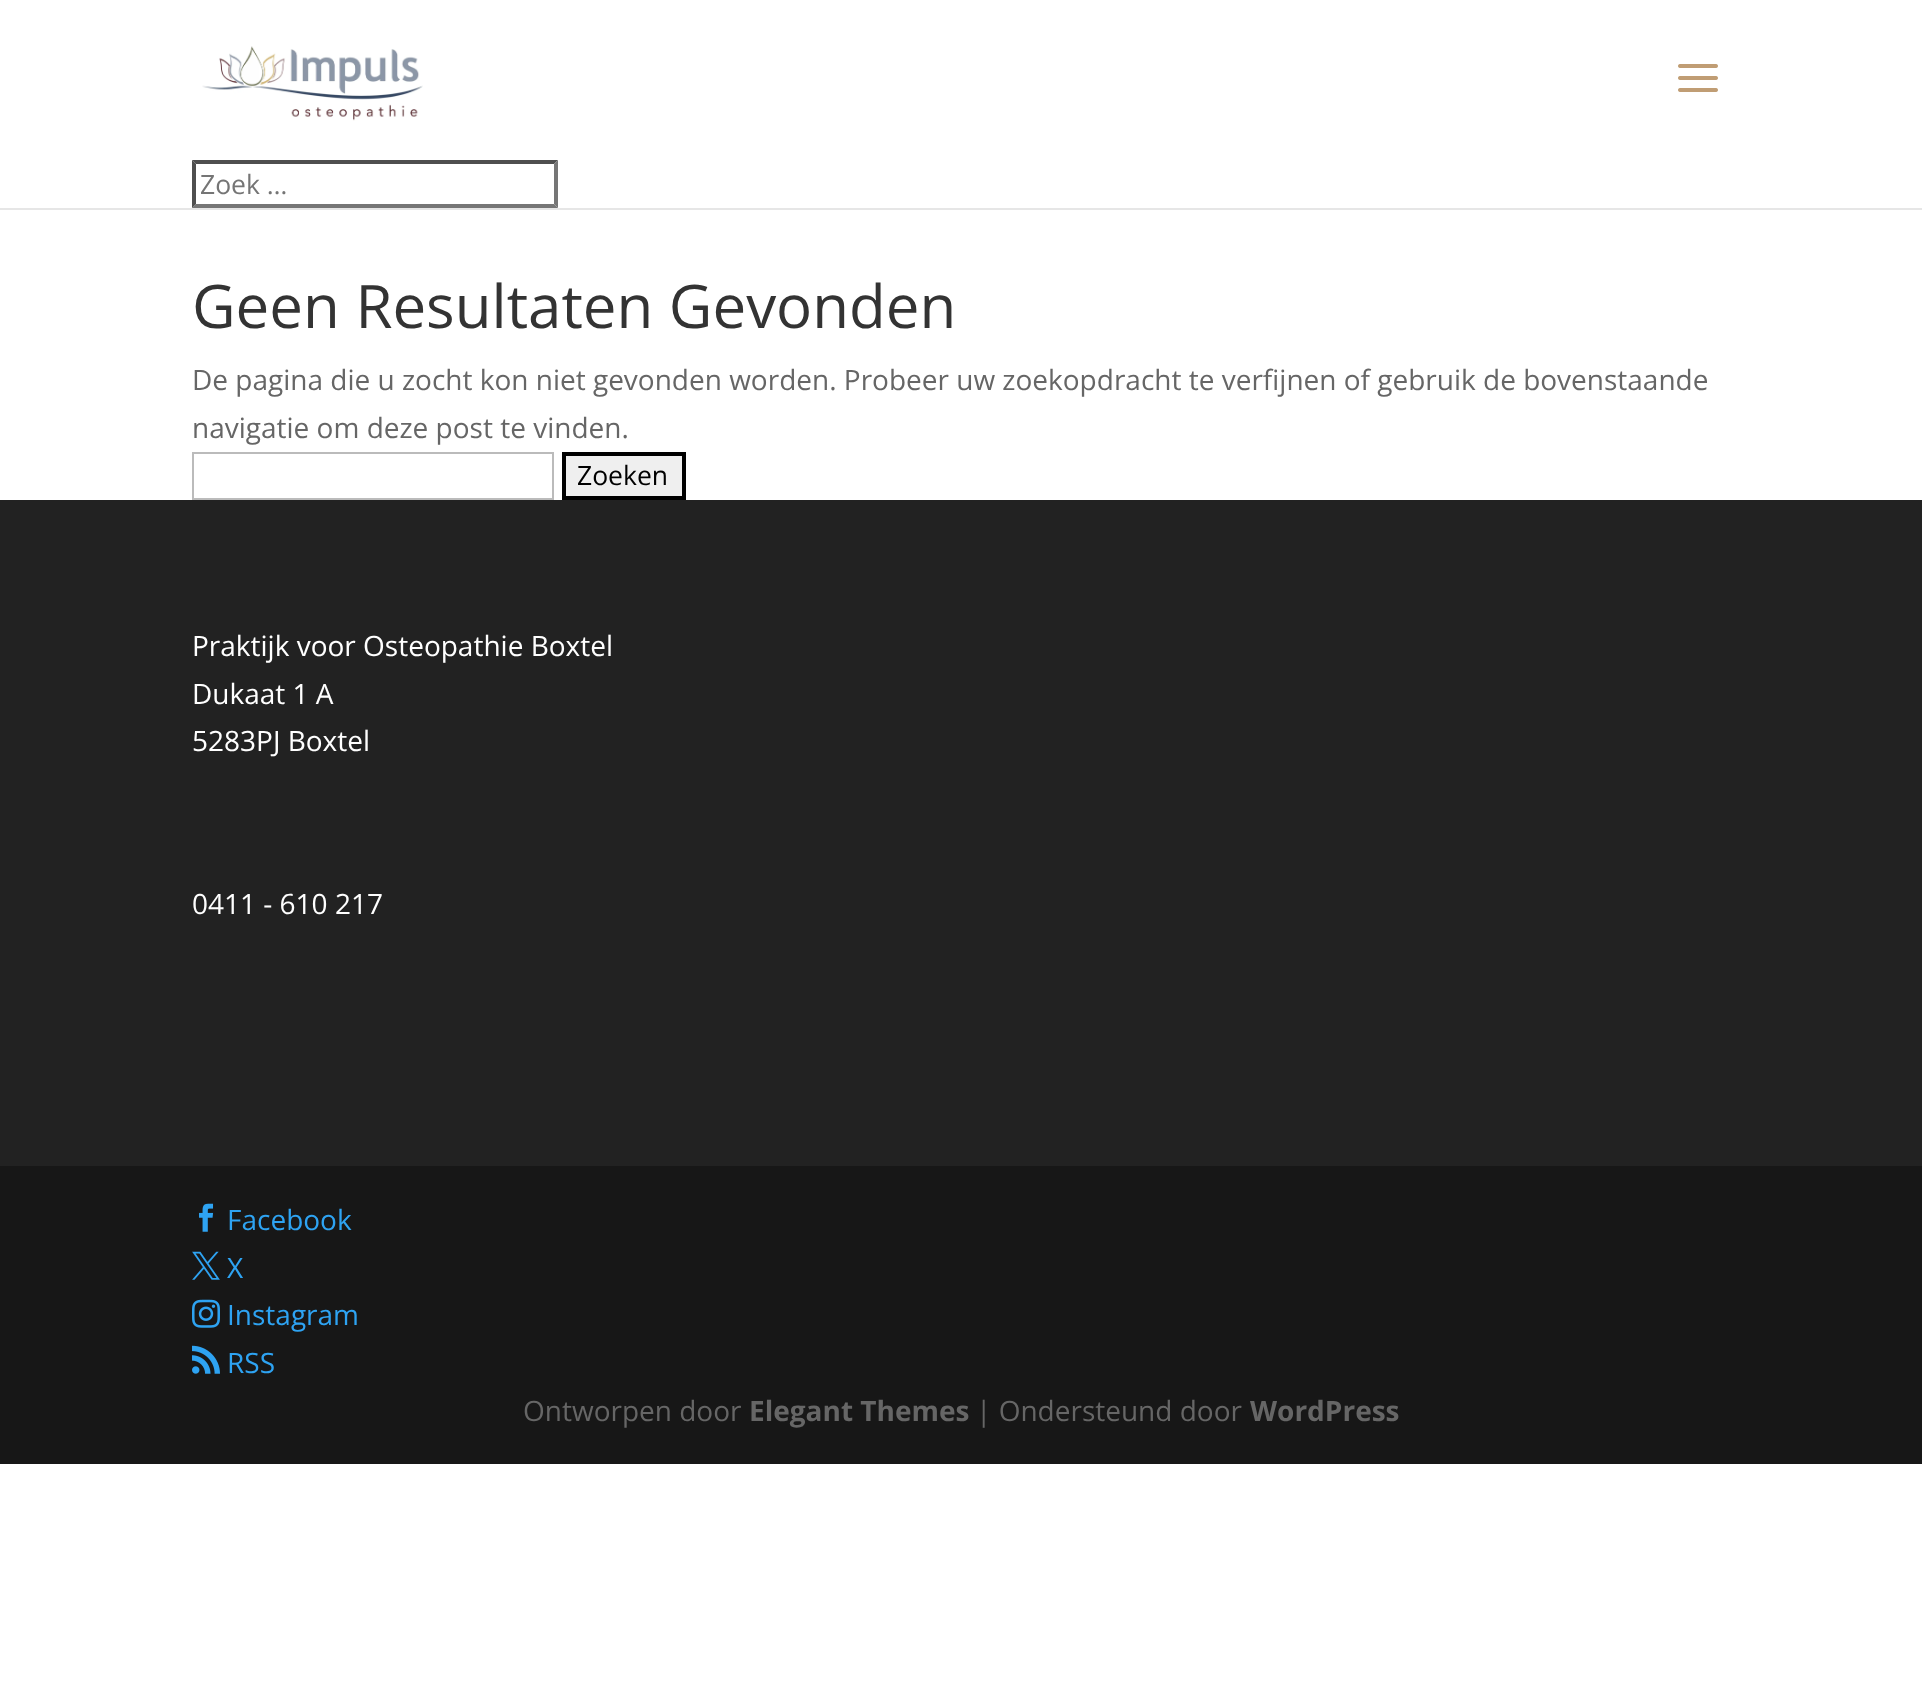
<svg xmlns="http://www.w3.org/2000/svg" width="1922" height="1691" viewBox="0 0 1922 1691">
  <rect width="100%" height="100%" fill="#fff"/>
  <path d="M0 208h1922v2H0z" fill="#e6e6e6"/>
  <image x="202" y="46" width="221" height="75" href="img/1.png"/>
  <image x="1678" y="64" width="40" height="28" href="img/2.png"/>
  <path d="M192 160H558L554 164H196Z" fill="#4f4f4f"/>
  <path d="M558 160V208L554 204V164Z" fill="#767676"/>
  <path d="M558 208H192L196 204H554Z" fill="#767676"/>
  <path d="M192 208V160L196 164V204Z" fill="#4f4f4f"/>
  <path d="M193 453h360v46H193z" fill="none" stroke="#bbb" stroke-width="2"/>
  <path d="M564 454h120v44H564z" fill="#efefef" stroke="#000" stroke-width="4"/>
  <path d="M0 500h1922v666H0z" fill="#222"/>
  <path d="M0 1166h1922v298H0z" fill="#171717"/>
  <image x="199" y="1203" width="15" height="29" href="img/3.png"/>
  <image x="192" y="1251" width="28" height="29" href="img/4.png"/>
  <image x="192" y="1299" width="28" height="29" href="img/5.png"/>
  <image x="192" y="1345" width="28" height="29" href="img/6.png"/>
  <text x="200" y="194" font-family="Open Sans" font-size="26.5" fill="#757575">Zoek …</text>
  <text x="192" y="328" font-family="Open Sans" font-size="60" fill="#333">Geen Resultaten Gevonden</text>
  <g font-family="Open Sans" font-size="28" fill="#666">
    <text x="192" y="390">De pagina die u zocht kon niet gevonden worden. Probeer uw zoekopdracht te verfijnen of gebruik de bovenstaande</text>
    <text x="192" y="438">navigatie om deze post te vinden.</text>
  </g>
  <text x="577" y="485" font-family="Open Sans" font-size="26.5" fill="#000">Zoeken</text>
  <g font-family="Open Sans" font-size="28" fill="#fff">
    <text x="192" y="656">Praktijk voor Osteopathie Boxtel</text>
    <text x="192" y="704">Dukaat 1 A</text>
    <text x="192" y="751">5283PJ Boxtel</text>
    <text x="192" y="914">0411 - 610 217</text>
  </g>
  <g font-family="Open Sans" font-size="28" fill="#2ea3f2">
    <text x="227" y="1230">Facebook</text>
    <text x="227" y="1278">X</text>
    <text x="227" y="1325">Instagram</text>
    <text x="227" y="1373">RSS</text>
  </g>
  <text x="523" y="1421" font-family="Open Sans" font-size="28" fill="#666">Ontworpen door</text>
  <text x="749" y="1421" font-family="Open Sans" font-size="28" font-weight="bold" fill="#666">Elegant Themes</text>
  <text x="976" y="1421" font-family="Open Sans" font-size="28" fill="#666">| Ondersteund door</text>
  <text x="1250" y="1421" font-family="Open Sans" font-size="28" font-weight="bold" fill="#666">WordPress</text>
</svg>
